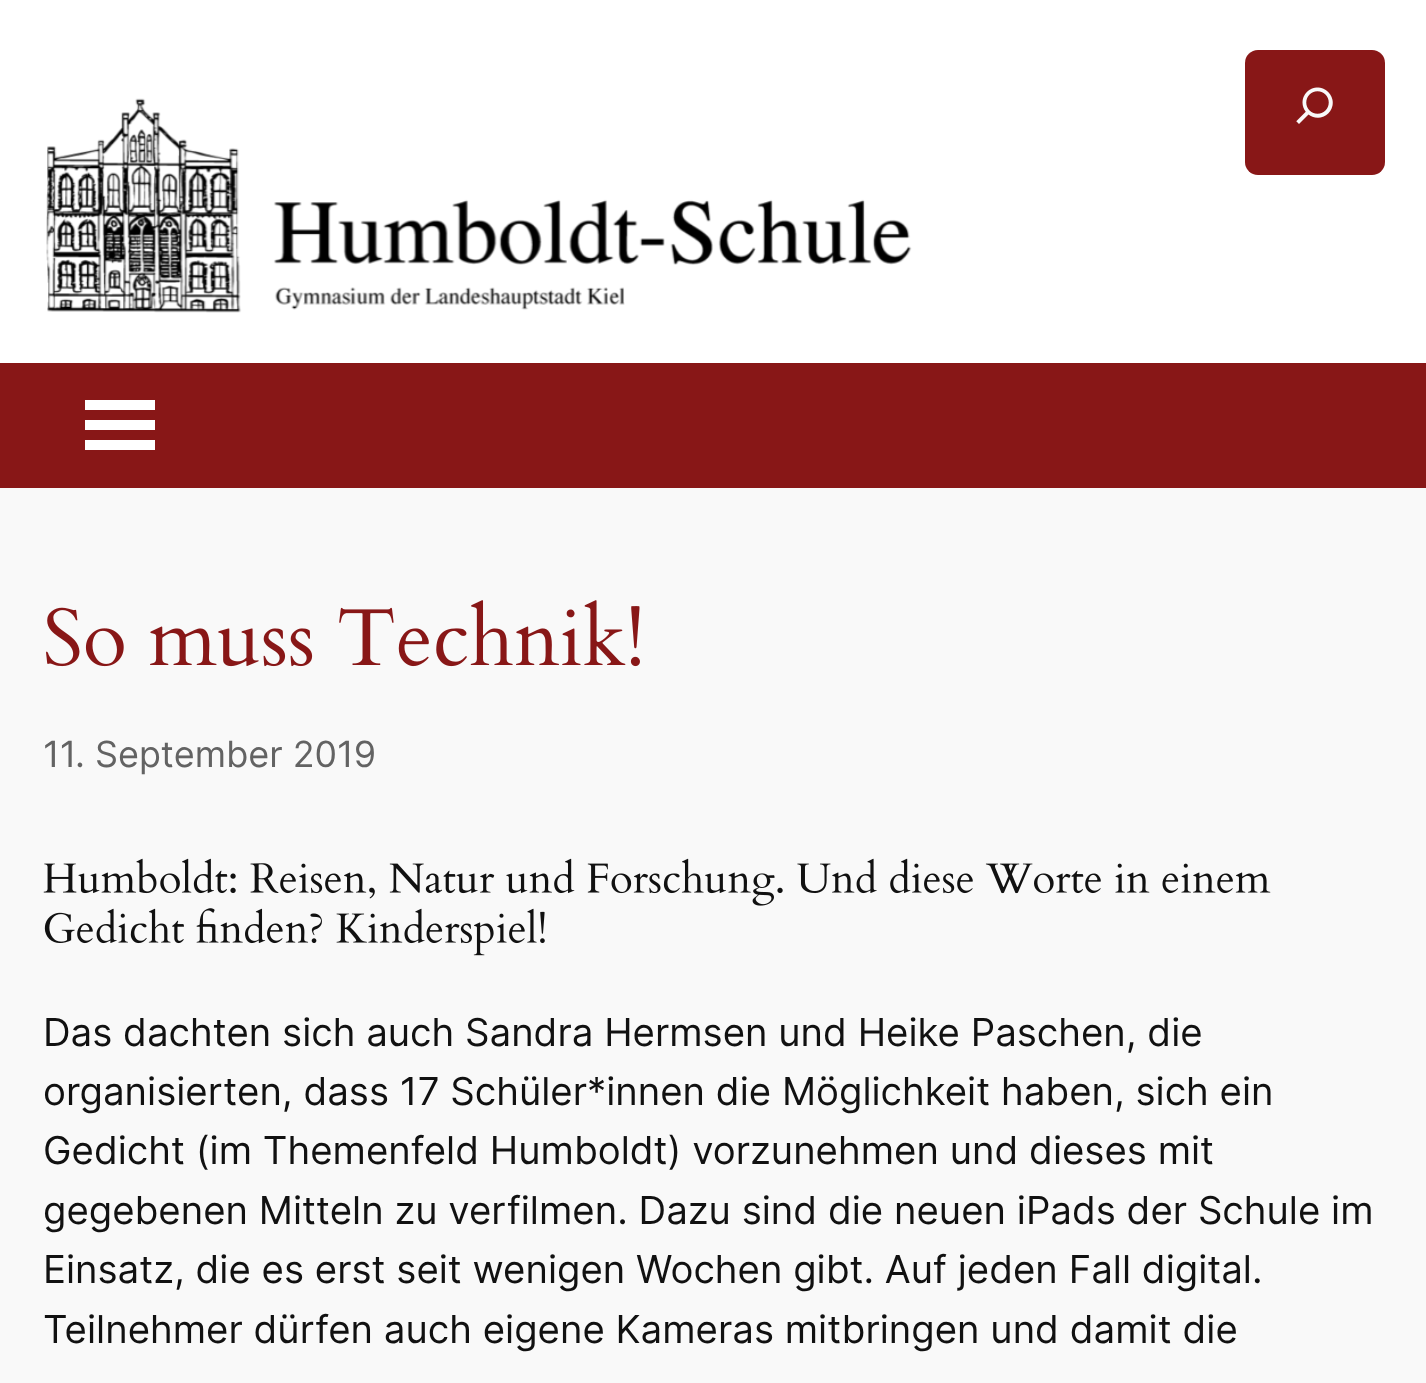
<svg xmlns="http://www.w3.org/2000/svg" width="1426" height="1383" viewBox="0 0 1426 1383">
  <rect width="100%" height="100%" fill="#f9f9f9"/>
  <path d="M0 0h1426v363H0z" fill="#fff"/>
  <image x="46" y="98" width="866" height="215" href="img/1.png"/>
  <rect x="1245" y="50" width="140" height="125" rx="13" fill="#881717"/>
  <image x="1296" y="87" width="37" height="37" href="img/2.png"/>
  <path d="M0 363h1426v125H0z" fill="#881717"/>
  <path d="M85 450H155V440H85ZM85 400V410H155V400ZM85 430H155V420H85Z" fill="#fff"/>
  <image x="46" y="600" width="594" height="67" href="img/3.png"/>
  <image x="43" y="858" width="1228" height="48" href="img/4.png"/>
  <image x="44" y="908" width="501" height="48" href="img/5.png"/>
  <text x="43" y="767" font-family="Inter" font-size="36" fill="#636363">11. September 2019</text>
  <g font-family="Inter" font-size="38.4" fill="#111">
    <text x="43" y="1046">Das dachten sich auch Sandra Hermsen und Heike Paschen, die</text>
    <text x="43" y="1105">organisierten, dass 17 Schüler*innen die Möglichkeit haben, sich ein</text>
    <text x="43" y="1164">Gedicht (im Themenfeld Humboldt) vorzunehmen und dieses mit</text>
    <text x="43" y="1224">gegebenen Mitteln zu verfilmen. Dazu sind die neuen iPads der Schule im</text>
    <text x="43" y="1283">Einsatz, die es erst seit wenigen Wochen gibt. Auf jeden Fall digital.</text>
    <text x="43" y="1343">Teilnehmer dürfen auch eigene Kameras mitbringen und damit die</text>
  </g>
</svg>
